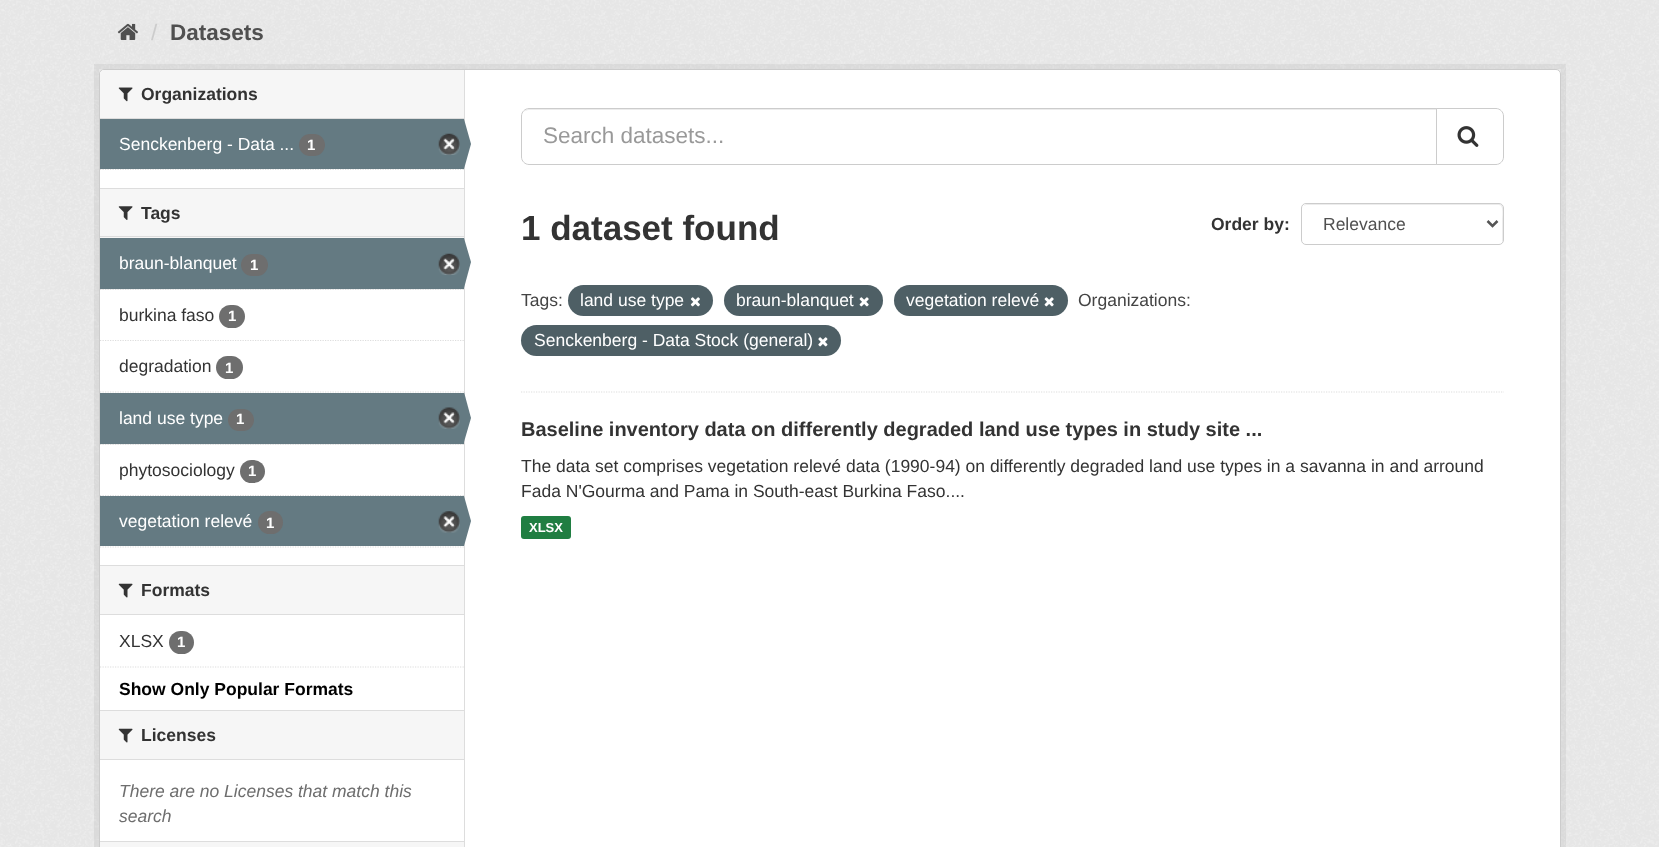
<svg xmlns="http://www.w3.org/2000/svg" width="1659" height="847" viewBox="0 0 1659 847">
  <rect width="100%" height="100%" fill="#eee"/>
  <image x="0" y="0" width="1659" height="847" href="img/1.png"/>
  <image x="117" y="23" width="21" height="17" href="img/2.png"/>
  <path d="M96.5 66.5h1467v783H96.5z" fill="none" stroke="#0000000d" stroke-width="5"/>
  <rect x="99.5" y="69.5" width="1461" height="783" rx="4.5" fill="#fff" stroke="#ccc"/>
  <path d="M104 70H464V119H100V74C100 72 102 70 104 70Z" fill="#f6f6f6"/>
  <path d="M100 118h364v1H100z" fill="#ddd"/>
  <image x="118" y="87" width="15" height="15" href="img/3.png"/>
  <path d="M100 169.5H464" fill="none" stroke="#ddd" stroke-width="1.2" stroke-dasharray="1.25 1.25"/>
  <path d="M100 119h364v50H100z" fill="#647a82"/>
  <rect x="299" y="134" width="26" height="22" rx="11" fill="#6e6e6e"/>
  <image x="438" y="133" width="22" height="22" href="img/4.png"/>
  <path d="M464 70h1v777H464z" fill="#ddd"/>
  <path d="M464 169V119L471 144Z" fill="#647a82"/>
  <path d="M100 189h364v49H100z" fill="#f6f6f6"/>
  <path d="M100 188h364v1H100z" fill="#ddd"/>
  <path d="M100 236h364v1H100z" fill="#ddd"/>
  <image x="118" y="206" width="15" height="14" href="img/5.png"/>
  <path d="M101 289h363v1H101z" fill="#f6f6f6"/>
  <path d="M100 289.5H464" fill="none" stroke="#ddd" stroke-width="1.2" stroke-dasharray="1.25 1.25"/>
  <path d="M100 238h364v51H100z" fill="#647a82"/>
  <rect x="241" y="254" width="27" height="22" rx="11" fill="#6e6e6e"/>
  <image x="438" y="253" width="22" height="22" href="img/6.png"/>
  <path d="M464 288V238L471 262Z" fill="#647a82"/>
  <path d="M100 340.5H464" fill="none" stroke="#ddd" stroke-width="1.2" stroke-dasharray="1.25 1.25"/>
  <rect x="219" y="305" width="26" height="23" rx="11.5" fill="#6e6e6e"/>
  <path d="M100 392H464" fill="none" stroke="#ddd" stroke-width="1.2" stroke-dasharray="1.25 1.25"/>
  <rect x="216" y="356" width="27" height="23" rx="11.5" fill="#6e6e6e"/>
  <path d="M101 444h363v1H101z" fill="#f6f6f6"/>
  <path d="M100 444.5H464" fill="none" stroke="#ddd" stroke-width="1.2" stroke-dasharray="1.25 1.25"/>
  <path d="M100 393h364v51H100z" fill="#647a82"/>
  <rect x="228" y="409" width="26" height="22" rx="11" fill="#6e6e6e"/>
  <image x="438" y="407" width="22" height="22" href="img/7.png"/>
  <path d="M464 442V392L471 418Z" fill="#647a82"/>
  <path d="M100 495.5H464" fill="none" stroke="#ddd" stroke-width="1.2" stroke-dasharray="1.25 1.25"/>
  <rect x="240" y="460" width="25" height="23" rx="11.5" fill="#6e6e6e"/>
  <path d="M100 496h364v50H100z" fill="#647a82"/>
  <rect x="258" y="511" width="25" height="23" rx="11.5" fill="#6e6e6e"/>
  <image x="438" y="511" width="22" height="22" href="img/8.png"/>
  <path d="M464 546V496L471 521Z" fill="#647a82"/>
  <path d="M100 547H464" fill="none" stroke="#ddd" stroke-width="1.2" stroke-dasharray="1.25 1.25"/>
  <path d="M100 566h364v48H100z" fill="#f6f6f6"/>
  <path d="M100 565h364v1H100z" fill="#ddd"/>
  <path d="M100 614h364v1H100z" fill="#ddd"/>
  <image x="118" y="583" width="15" height="15" href="img/9.png"/>
  <rect x="169" y="631" width="25" height="23" rx="11.5" fill="#6e6e6e"/>
  <path d="M100 667H464" fill="none" stroke="#ddd" stroke-width="1.2" stroke-dasharray="1.25 1.25"/>
  <path d="M100 711h364v48H100z" fill="#f6f6f6"/>
  <path d="M100 710h364v1H100z" fill="#ddd"/>
  <path d="M100 759h364v1H100z" fill="#ddd"/>
  <image x="118" y="728" width="15" height="15" href="img/9.png"/>
  <path d="M100 842h364v5H100z" fill="#f6f6f6"/>
  <path d="M100 841h364v1H100z" fill="#ddd"/>
  <path d="M521 392H1504" fill="none" stroke="#ddd" stroke-width="1.2" stroke-dasharray="1.25 1.25"/>
  <path d="M529 110H1436V109H529C527 109 525 110 524 112C525 111 527 110 529 110Z" fill="#ececec"/>
  <path d="M529 108.5H1437.5V164.5H529C525 164.5 521.5 161 521.5 157V116C521.5 112 525 108.5 529 108.5Z" fill="none" stroke="#ccc"/>
  <path d="M1436.5 108.5H1496C1500 108.5 1503.5 112 1503.5 116V157C1503.5 161 1500 164.5 1496 164.5H1436.5Z" fill="#fff" stroke="#ccc"/>
  <image x="1457" y="126" width="22" height="21" href="img/10.png"/>
  <path d="M1306 205H1499C1504 205 1502 218 1502 220V243C1502 242 1503 241 1503 240V208C1503 206 1501 204 1499 204H1307C1306 204 1304 205 1304 206Z" fill="#ececec"/>
  <rect x="1301.5" y="203.5" width="202" height="41" rx="4.5" fill="none" stroke="#ccc"/>
  <path d="M1487.5 221L1492.5 226L1497.5 221" fill="none" stroke="#555" stroke-width="2.5"/>
  <rect x="568" y="285" width="145" height="31" rx="15.5" fill="#4e5f65"/>
  <image x="690" y="297" width="10" height="10" href="img/11.png"/>
  <rect x="724" y="285" width="159" height="31" rx="15.5" fill="#4e5f65"/>
  <image x="859" y="297" width="10" height="10" href="img/12.png"/>
  <rect x="894" y="285" width="174" height="31" rx="15.5" fill="#4e5f65"/>
  <image x="1044" y="297" width="10" height="10" href="img/12.png"/>
  <rect x="521" y="325" width="320" height="31" rx="15.5" fill="#4e5f65"/>
  <image x="818" y="337" width="10" height="10" href="img/13.png"/>
  <rect x="521" y="516" width="50" height="23" rx="3" fill="#207e42"/>
  <text x="151" y="40" font-family="Liberation Sans" font-size="22.5" fill="#ccc">/</text>
  <text x="170" y="40" font-family="Liberation Sans" font-size="22.5" font-weight="bold" fill="#505050">Datasets</text>
  <text x="141" y="100" font-family="Liberation Sans" font-size="17.5" font-weight="bold" fill="#333">Organizations</text>
  <text x="119" y="150" font-family="Liberation Sans" font-size="17.5" fill="#fff">Senckenberg - Data ...</text>
  <text x="307" y="150" font-family="Liberation Sans" font-size="15" font-weight="bold" fill="#fff">1</text>
  <text x="141" y="219" font-family="Liberation Sans" font-size="17.5" font-weight="bold" fill="#333">Tags</text>
  <text x="119" y="269" font-family="Liberation Sans" font-size="17.5" fill="#fff">braun-blanquet</text>
  <text x="250" y="270" font-family="Liberation Sans" font-size="15" font-weight="bold" fill="#fff">1</text>
  <text x="119" y="321" font-family="Liberation Sans" font-size="17.5" fill="#333">burkina faso</text>
  <text x="228" y="321" font-family="Liberation Sans" font-size="15" font-weight="bold" fill="#fff">1</text>
  <text x="119" y="372" font-family="Liberation Sans" font-size="17.5" fill="#333">degradation</text>
  <text x="225" y="373" font-family="Liberation Sans" font-size="15" font-weight="bold" fill="#fff">1</text>
  <text x="119" y="424" font-family="Liberation Sans" font-size="17.5" fill="#fff">land use type</text>
  <text x="236" y="424" font-family="Liberation Sans" font-size="15" font-weight="bold" fill="#fff">1</text>
  <text x="119" y="476" font-family="Liberation Sans" font-size="17.5" fill="#333">phytosociology</text>
  <text x="248" y="476" font-family="Liberation Sans" font-size="15" font-weight="bold" fill="#fff">1</text>
  <text x="119" y="527" font-family="Liberation Sans" font-size="17.5" fill="#fff">vegetation relevé</text>
  <text x="266" y="528" font-family="Liberation Sans" font-size="15" font-weight="bold" fill="#fff">1</text>
  <text x="141" y="596" font-family="Liberation Sans" font-size="17.5" font-weight="bold" fill="#333">Formats</text>
  <text x="119" y="647" font-family="Liberation Sans" font-size="17.5" fill="#333">XLSX</text>
  <text x="177" y="647" font-family="Liberation Sans" font-size="15" font-weight="bold" fill="#fff">1</text>
  <text x="119" y="695" font-family="Liberation Sans" font-size="17.5" font-weight="bold" fill="#000">Show Only Popular Formats</text>
  <text x="141" y="741" font-family="Liberation Sans" font-size="17.5" font-weight="bold" fill="#333">Licenses</text>
  <g font-family="Liberation Sans" font-size="17.5" font-style="italic" fill="#6e6e6e">
    <text x="119" y="797">There are no Licenses that match this</text>
    <text x="119" y="822">search</text>
  </g>
  <text x="543" y="143" font-family="Liberation Sans" font-size="22.5" fill="#999">Search datasets...</text>
  <text x="521" y="240" font-family="Liberation Sans" font-size="35" font-weight="bold" fill="#333">1 dataset found</text>
  <text x="1211" y="230" font-family="Liberation Sans" font-size="17.5" font-weight="bold" fill="#333">Order by:</text>
  <text x="1323" y="230" font-family="Liberation Sans" font-size="17.5" fill="#505050">Relevance</text>
  <text x="521" y="306" font-family="Liberation Sans" font-size="17.5" fill="#444">Tags:</text>
  <g font-family="Liberation Sans" font-size="17.5" fill="#fff">
    <text x="580" y="306">land use type</text>
    <text x="736" y="306">braun-blanquet</text>
    <text x="906" y="306">vegetation relevé</text>
  </g>
  <text x="1078" y="306" font-family="Liberation Sans" font-size="17.5" fill="#444">Organizations:</text>
  <text x="534" y="346" font-family="Liberation Sans" font-size="17.5" fill="#fff">Senckenberg - Data Stock (general)</text>
  <text x="521" y="436" font-family="Liberation Sans" font-size="20" font-weight="bold" fill="#333">Baseline inventory data on differently degraded land use types in study site ...</text>
  <g font-family="Liberation Sans" font-size="17.5" fill="#333">
    <text x="521" y="472">The data set comprises vegetation relevé data (1990-94) on differently degraded land use types in a savanna in and arround</text>
    <text x="521" y="497">Fada N'Gourma and Pama in South-east Burkina Faso....</text>
  </g>
  <text x="529" y="532" font-family="Liberation Sans" font-size="13" font-weight="bold" fill="#fff">XLSX</text>
</svg>
